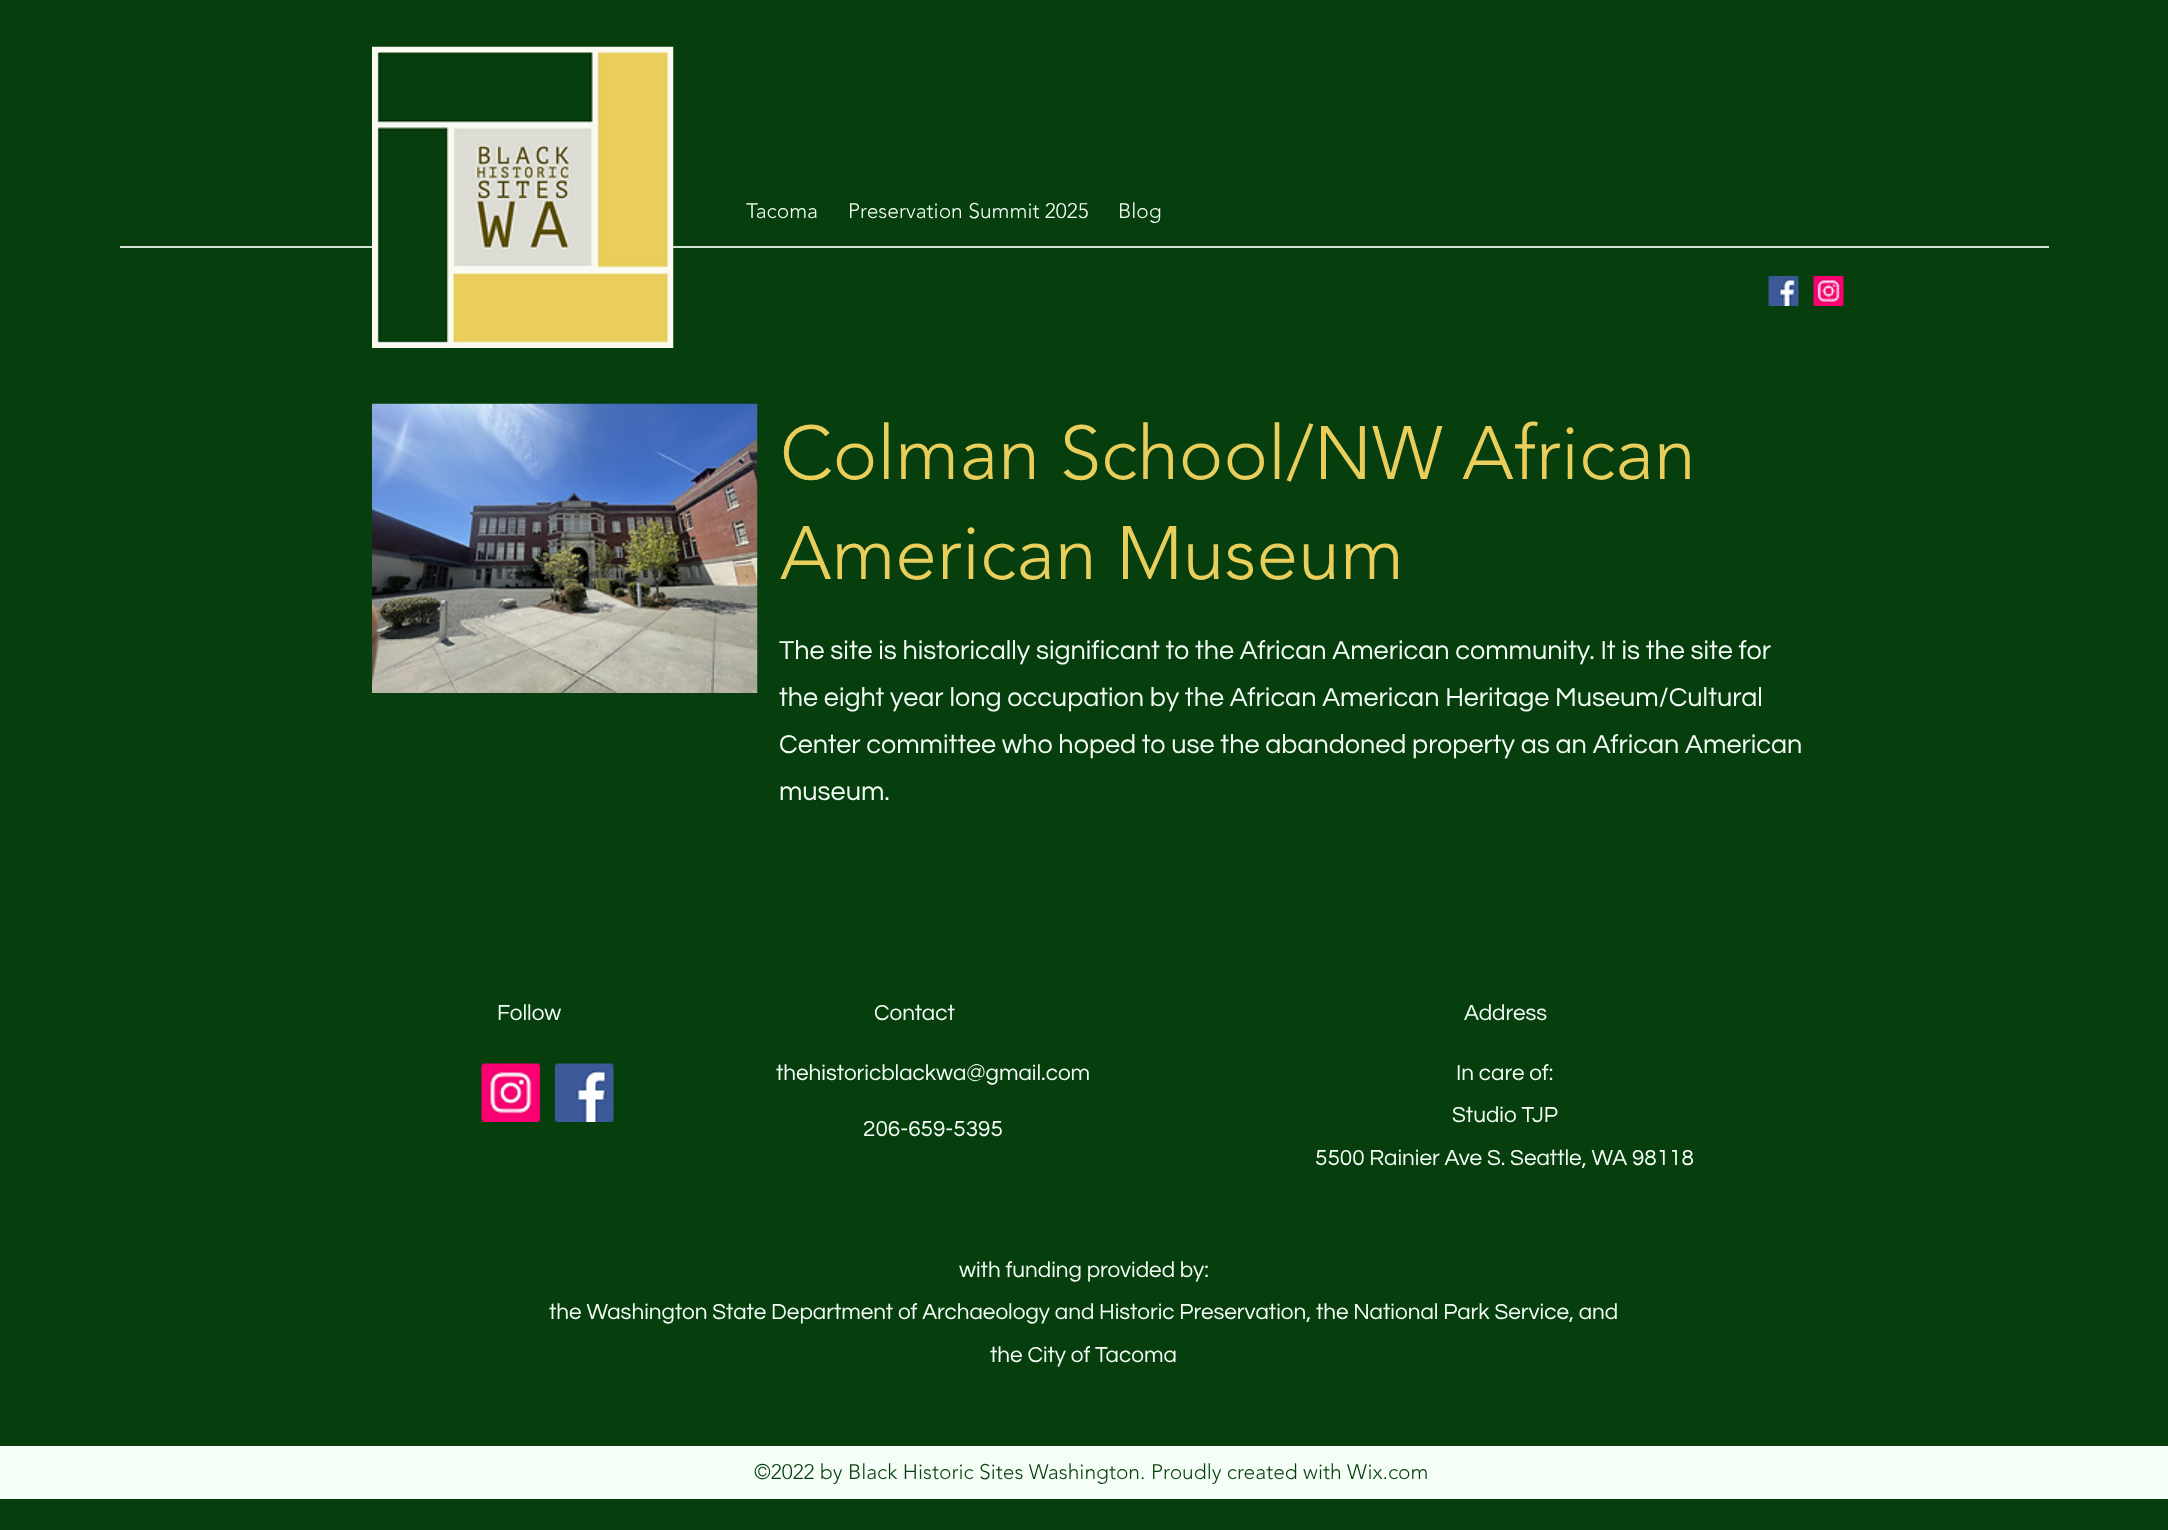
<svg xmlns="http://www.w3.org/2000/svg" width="2168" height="1530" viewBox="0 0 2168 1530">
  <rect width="100%" height="100%" fill="#063f0d"/>
  <path d="M120 246h1929v2H120z" fill="#d1e2d4"/>
  <image x="372" y="46" width="302" height="302" href="img/1.png"/>
  <image x="1768" y="276" width="31" height="30" href="img/2.png"/>
  <image x="1813" y="276" width="31" height="30" href="img/3.png"/>
  <image x="372" y="403" width="386" height="290" href="img/4.png"/>
  <image x="481" y="1063" width="59" height="59" href="img/5.png"/>
  <image x="555" y="1063" width="59" height="59" href="img/6.png"/>
  <path d="M0 1446h2168v53H0z" fill="#f5fff7"/>
  <g font-family="'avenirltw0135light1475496'" font-size="21" font-weight="300" fill="#f5fff7">
    <text x="746" y="218">Tacoma</text>
    <text x="848" y="218">Preservation Summit 2025</text>
    <text x="1118" y="218">Blog</text>
  </g>
  <g font-family="'avenirltw0135light1475496'" font-size="75" font-weight="300" fill="#eace5c">
    <text x="780" y="479">Colman School/NW African</text>
    <text x="780" y="579">American Museum</text>
  </g>
  <g font-family="Questrial" font-size="27" fill="#f5fff7">
    <text x="779" y="659">The site is historically significant to the African American community. It is the site for</text>
    <text x="779" y="706">the eight year long occupation by the African American Heritage Museum/Cultural</text>
    <text x="779" y="753">Center committee who hoped to use the abandoned property as an African American</text>
    <text x="779" y="800">museum.</text>
  </g>
  <g font-family="Questrial" font-size="22.5" fill="#f5fff7">
    <text x="497" y="1020">Follow</text>
    <text x="874" y="1020">Contact</text>
    <text x="1464" y="1020">Address</text>
    <text x="776" y="1080">thehistoricblackwa@gmail.com</text>
    <text x="1456" y="1080">In care of:</text>
    <text x="1452" y="1122">Studio TJP</text>
    <text x="1315" y="1165">5500 Rainier Ave S. Seattle, WA 98118</text>
    <text x="863" y="1136">206-659-5395</text>
    <text x="959" y="1277">with funding provided by:</text>
    <text x="549" y="1319">the Washington State Department of Archaeology and Historic Preservation, the National Park Service, and</text>
    <text x="990" y="1362">the City of Tacoma</text>
  </g>
  <text x="754" y="1479" font-family="'avenirltw0135light1475496'" font-size="21" font-weight="300" fill="#063f0d">©2022 by Black Historic Sites Washington. Proudly created with Wix.com</text>
</svg>
